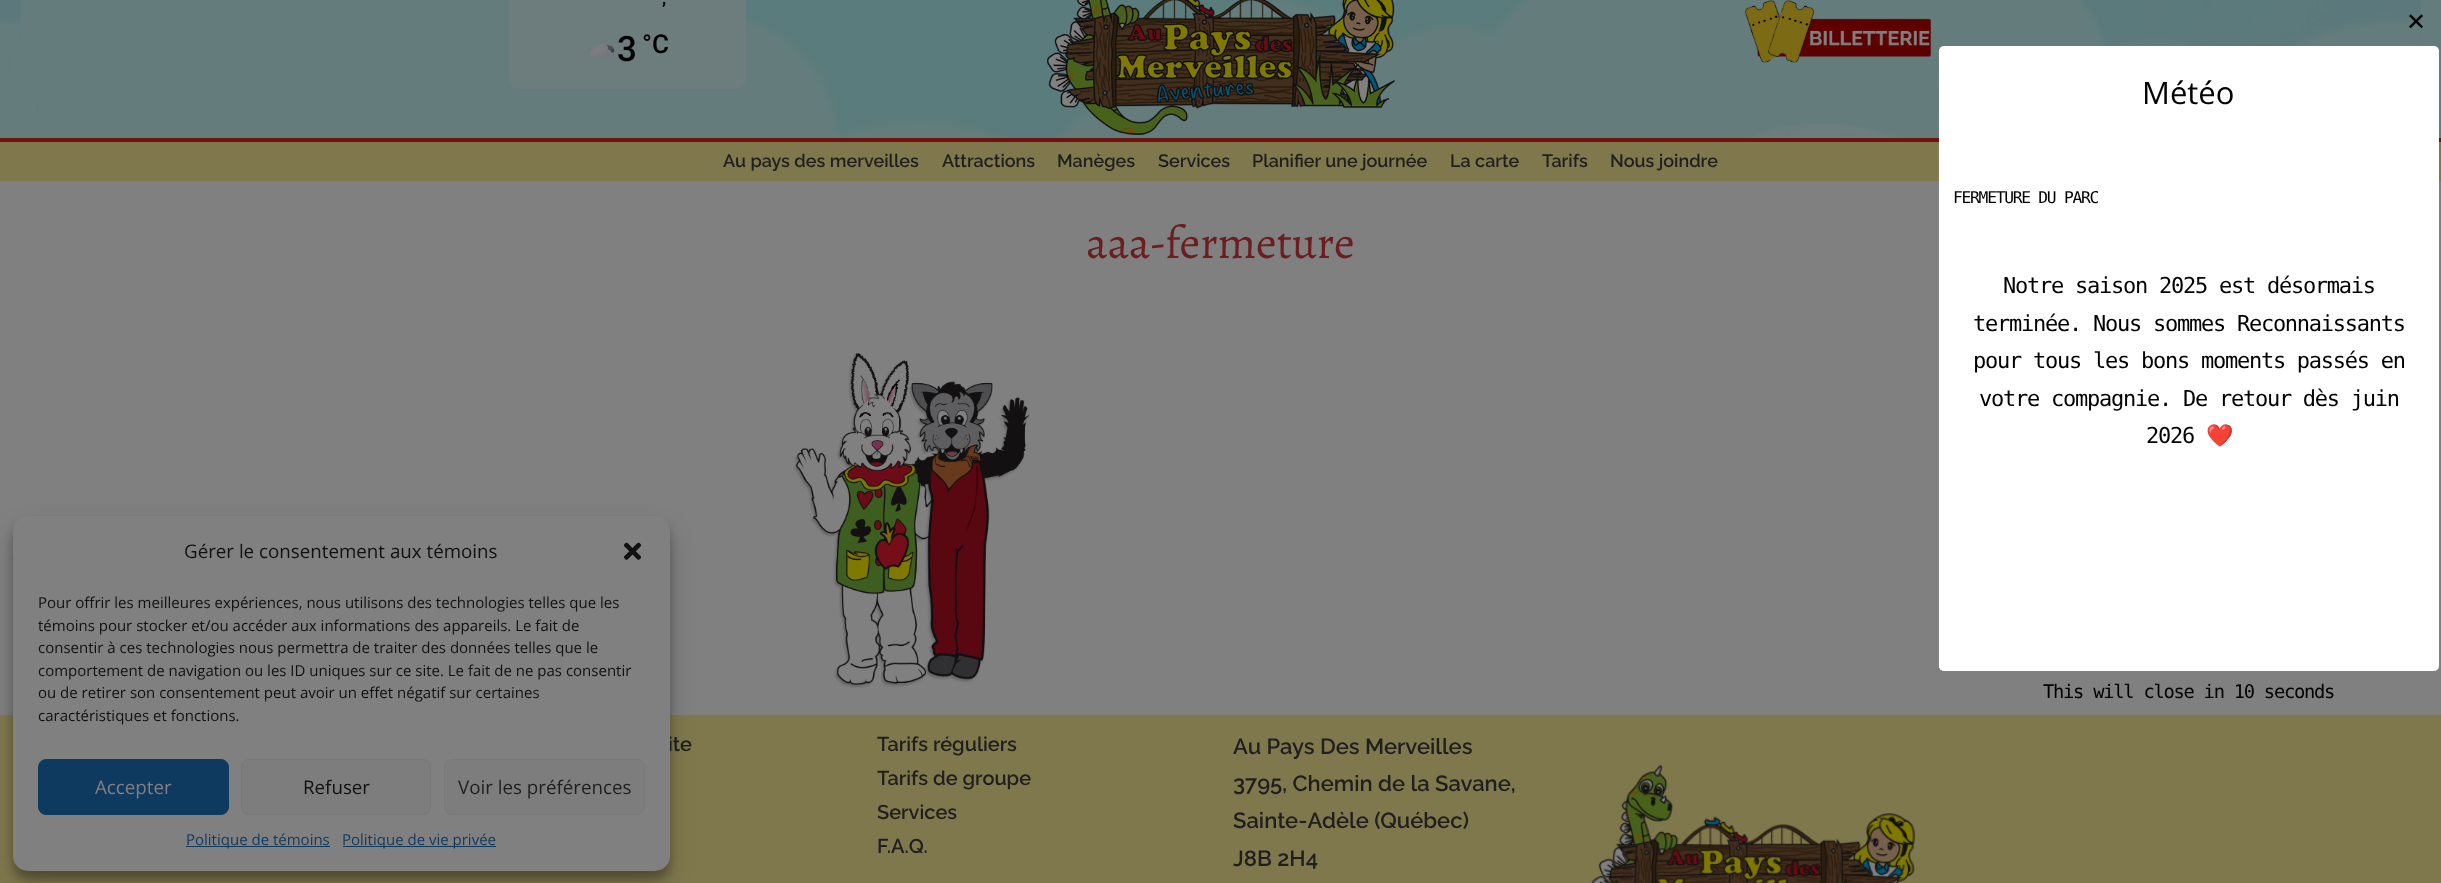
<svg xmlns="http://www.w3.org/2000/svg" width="2441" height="883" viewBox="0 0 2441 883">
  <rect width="100%" height="100%" fill="#808080"/>
  <image x="0" y="0" width="2441" height="138" href="img/1.png"/>
  <rect x="509" y="-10" width="237" height="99" rx="10" fill="#6d7d7e"/>
  <image x="589" y="43" width="26" height="14" href="img/2.png"/>
  <image x="1047" y="0" width="348" height="135" href="img/3.png"/>
  <image x="1745" y="0" width="187" height="63" href="img/4.png"/>
  <path d="M0 142h2441v39H0z" fill="#80784d"/>
  <path d="M0 138h2441v4H0z" fill="#701212"/>
  <rect x="1939" y="46" width="500" height="625" rx="5" fill="#fff"/>
  <path d="M1944 47H2434C2436 47 2438 49 2438 51V666C2438 668.5 2436 670.5 2434 670.5H1944C1941.5 670.5 1939.5 668.5 1939.5 666V51C1939.5 49 1941.5 47 1944 47Z" fill="none" stroke="#fff" stroke-width="1.2" stroke-dasharray="1.25 1.25"/>
  <image x="793" y="353" width="237" height="335" href="img/5.png"/>
  <path d="M0 715h2441v168H0z" fill="#80784d"/>
  <rect x="13" y="524" width="657" height="355" rx="15" fill="#0000003b" filter="blur(4px)"/>
  <rect x="13" y="529" width="657" height="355" rx="15" fill="#00000030" filter="blur(12.5px)"/>
  <image x="1591" y="764" width="325" height="119" href="img/7.png"/>
  <text x="662" y="4" font-family="Roboto" font-size="18" font-weight="600" fill="#000">,</text>
  <text x="617" y="61" font-family="Roboto" font-size="35" font-weight="500" fill="#000">3</text>
  <text x="642" y="53" font-family="Roboto" font-size="26" font-weight="500" fill="#000">°C</text>
  <g font-family="Raleway" font-size="18" font-weight="600" fill="#1f1f1f">
    <text x="723" y="167">Au pays des merveilles</text>
    <text x="942" y="167">Attractions</text>
    <text x="1057" y="167">Manèges</text>
    <text x="1158" y="167">Services</text>
    <text x="1252" y="167">Planifier une journée</text>
    <text x="1450" y="167">La carte</text>
    <text x="1542" y="167">Tarifs</text>
    <text x="1610" y="167">Nous joindre</text>
  </g>
  <text x="2406" y="30" font-family="DejaVu Sans" font-size="24" fill="#000">✕</text>
  <text x="2142" y="104" font-family="Open Sans" font-size="31" fill="#000">Météo</text>
  <text x="1953" y="203" font-family="DejaVu Sans Mono" font-size="16.25" letter-spacing="-1.25" fill="#000">FERMETURE DU PARC</text>
  <g font-family="DejaVu Sans Mono" font-size="22" letter-spacing="-1.25" fill="#000">
    <text x="2003" y="293">Notre saison 2025 est désormais</text>
    <text x="1973" y="331">terminée. Nous sommes Reconnaissants</text>
    <text x="1973" y="368">pour tous les bons moments passés en</text>
    <text x="1979" y="406">votre compagnie. De retour dès juin</text>
    <text x="2146" y="443">2026</text>
  </g>
  <text x="2206" y="443" font-family="Noto Color Emoji" font-size="22" letter-spacing="-1.25" fill="#000">❤️</text>
  <text x="2043" y="698" font-family="DejaVu Sans Mono" font-size="18.75" letter-spacing="-1.25" fill="#000">This will close in 10 seconds</text>
  <text x="1086" y="258" font-family="Sahitya" font-size="46" fill="#6c1d20">aaa-fermeture</text>
  <text x="668" y="751" font-family="Raleway" font-size="20" font-weight="600" fill="#1f1f1f">ite</text>
  <rect x="13" y="516" width="657" height="355" rx="15" fill="#808080"/>
  <g font-family="Open Sans" font-size="15" fill="#111">
    <text x="38" y="721">caractéristiques et fonctions.</text>
    <text x="38" y="698">ou de retirer son consentement peut avoir un effet négatif sur certaines</text>
    <text x="38" y="676">comportement de navigation ou les ID uniques sur ce site. Le fait de ne pas consentir</text>
    <text x="38" y="653">consentir à ces technologies nous permettra de traiter des données telles que le</text>
    <text x="38" y="631">témoins pour stocker et/ou accéder aux informations des appareils. Le fait de</text>
    <text x="38" y="608">Pour offrir les meilleures expériences, nous utilisons des technologies telles que les</text>
  </g>
  <image x="623" y="542" width="19" height="18" href="img/6.png"/>
  <path d="M343 846h153v1H343z" fill="#0f3a5f"/>
  <text x="342" y="845" font-family="Open Sans" font-size="15" fill="#0f3a5f">Politique de vie privée</text>
  <path d="M186 846h144v1H186z" fill="#0f3a5f"/>
  <text x="186" y="845" font-family="Open Sans" font-size="15" fill="#0f3a5f">Politique de témoins</text>
  <rect x="444.5" y="759.5" width="200" height="55" rx="7.5" fill="#7d7d7d" stroke="#797979"/>
  <text x="458" y="794" font-family="Open Sans" font-size="18.75" fill="#1f1f1f">Voir les préférences</text>
  <rect x="241.5" y="759.5" width="189" height="55" rx="7.5" fill="#7d7d7d" stroke="#797979"/>
  <text x="303" y="794" font-family="Open Sans" font-size="18.75" fill="#111">Refuser</text>
  <rect x="38.5" y="759.5" width="190" height="55" rx="7.5" fill="#0f3a5f" stroke="#0f3a5f"/>
  <text x="95" y="794" font-family="Open Sans" font-size="18.75" fill="#808080">Accepter</text>
  <text x="184" y="558" font-family="Open Sans" font-size="18.75" fill="#111">Gérer le consentement aux témoins</text>
  <g font-family="Raleway" font-size="20" font-weight="600" fill="#1f1f1f">
    <text x="877" y="751">Tarifs réguliers</text>
    <text x="877" y="785">Tarifs de groupe</text>
    <text x="877" y="819">Services</text>
    <text x="877" y="853">F.A.Q.</text>
  </g>
  <g font-family="Raleway" font-size="22" font-weight="600" fill="#1f1f1f">
    <text x="1233" y="754">Au Pays Des Merveilles</text>
    <text x="1233" y="791">3795, Chemin de la Savane,</text>
    <text x="1233" y="828">Sainte-Adèle (Québec)</text>
    <text x="1233" y="866">J8B 2H4</text>
  </g>
</svg>
